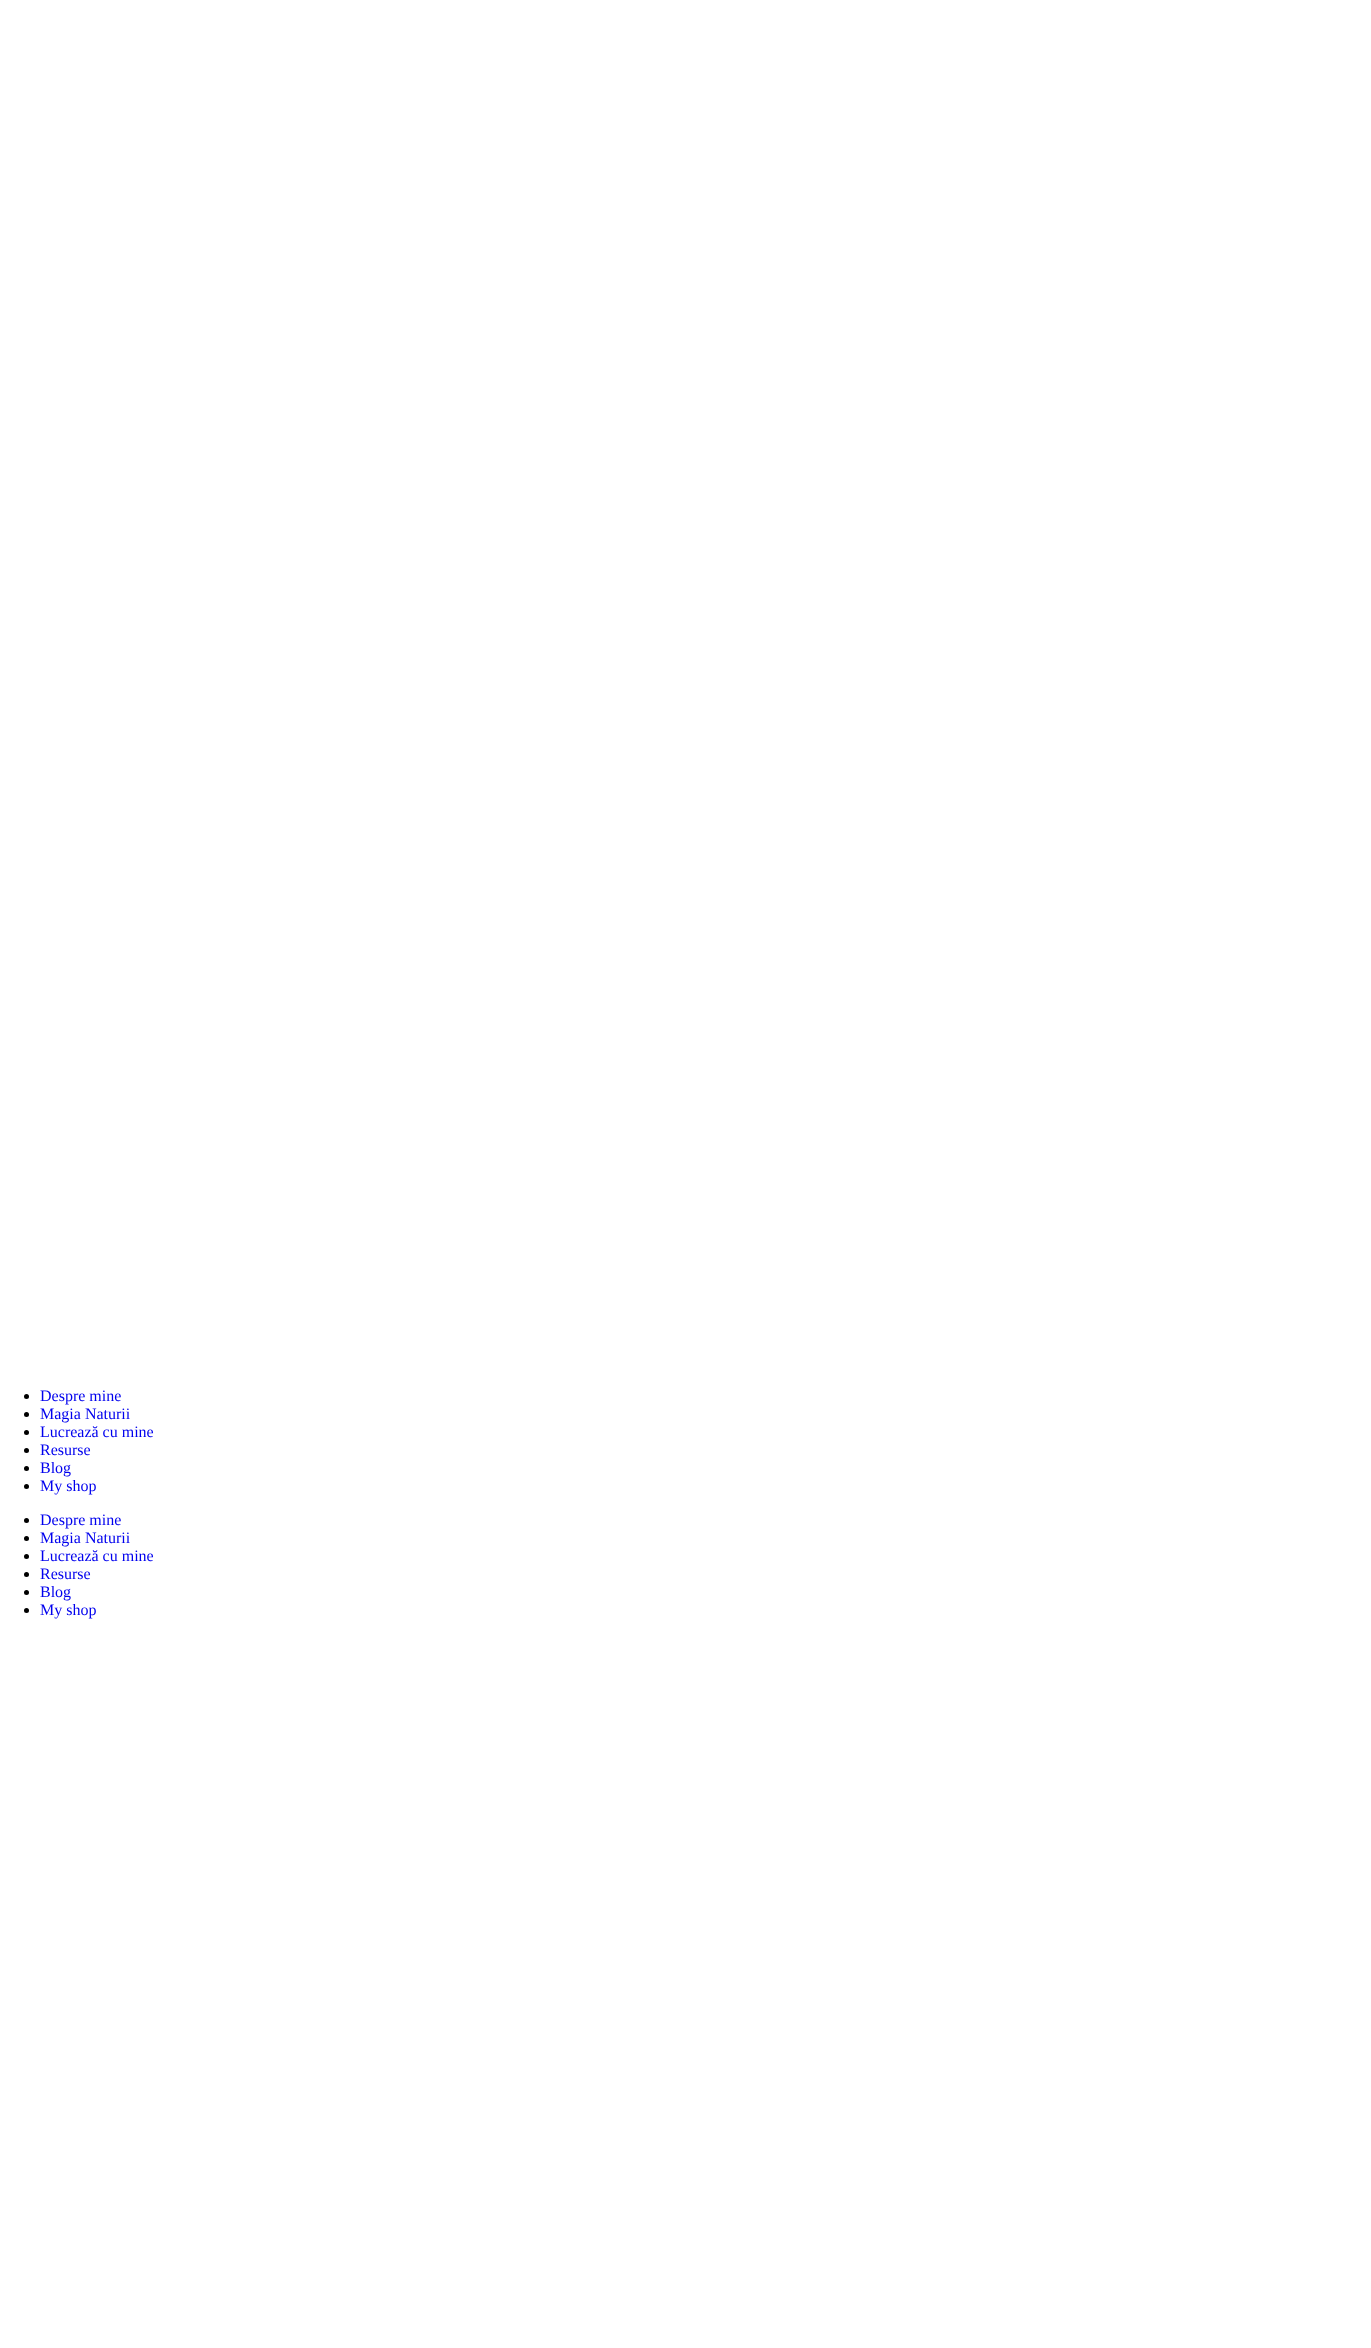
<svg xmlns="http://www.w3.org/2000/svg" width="1371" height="2348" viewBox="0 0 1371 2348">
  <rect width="100%" height="100%" fill="#fff"/>
  <circle cx="26.5" cy="1396.5" r="2.5" fill="#000"/>
  <circle cx="26.5" cy="1414.5" r="2.5" fill="#000"/>
  <circle cx="26.5" cy="1432.5" r="2.5" fill="#000"/>
  <circle cx="26.5" cy="1450.5" r="2.5" fill="#000"/>
  <circle cx="26.5" cy="1468.5" r="2.5" fill="#000"/>
  <circle cx="26.5" cy="1486.5" r="2.5" fill="#000"/>
  <circle cx="26.5" cy="1520.5" r="2.5" fill="#000"/>
  <circle cx="26.5" cy="1538.5" r="2.5" fill="#000"/>
  <circle cx="26.5" cy="1556.5" r="2.5" fill="#000"/>
  <circle cx="26.5" cy="1574.5" r="2.5" fill="#000"/>
  <circle cx="26.5" cy="1592.5" r="2.5" fill="#000"/>
  <circle cx="26.5" cy="1610.5" r="2.5" fill="#000"/>
  <g font-family="Liberation Serif" font-size="16" fill="#00e">
    <text x="40" y="1401">Despre mine</text>
    <text x="40" y="1419">Magia Naturii</text>
    <text x="40" y="1437">Lucrează cu mine</text>
    <text x="40" y="1455">Resurse</text>
    <text x="40" y="1473">Blog</text>
    <text x="40" y="1491">My shop</text>
    <text x="40" y="1525">Despre mine</text>
    <text x="40" y="1543">Magia Naturii</text>
    <text x="40" y="1561">Lucrează cu mine</text>
    <text x="40" y="1579">Resurse</text>
    <text x="40" y="1597">Blog</text>
    <text x="40" y="1615">My shop</text>
  </g>
</svg>
